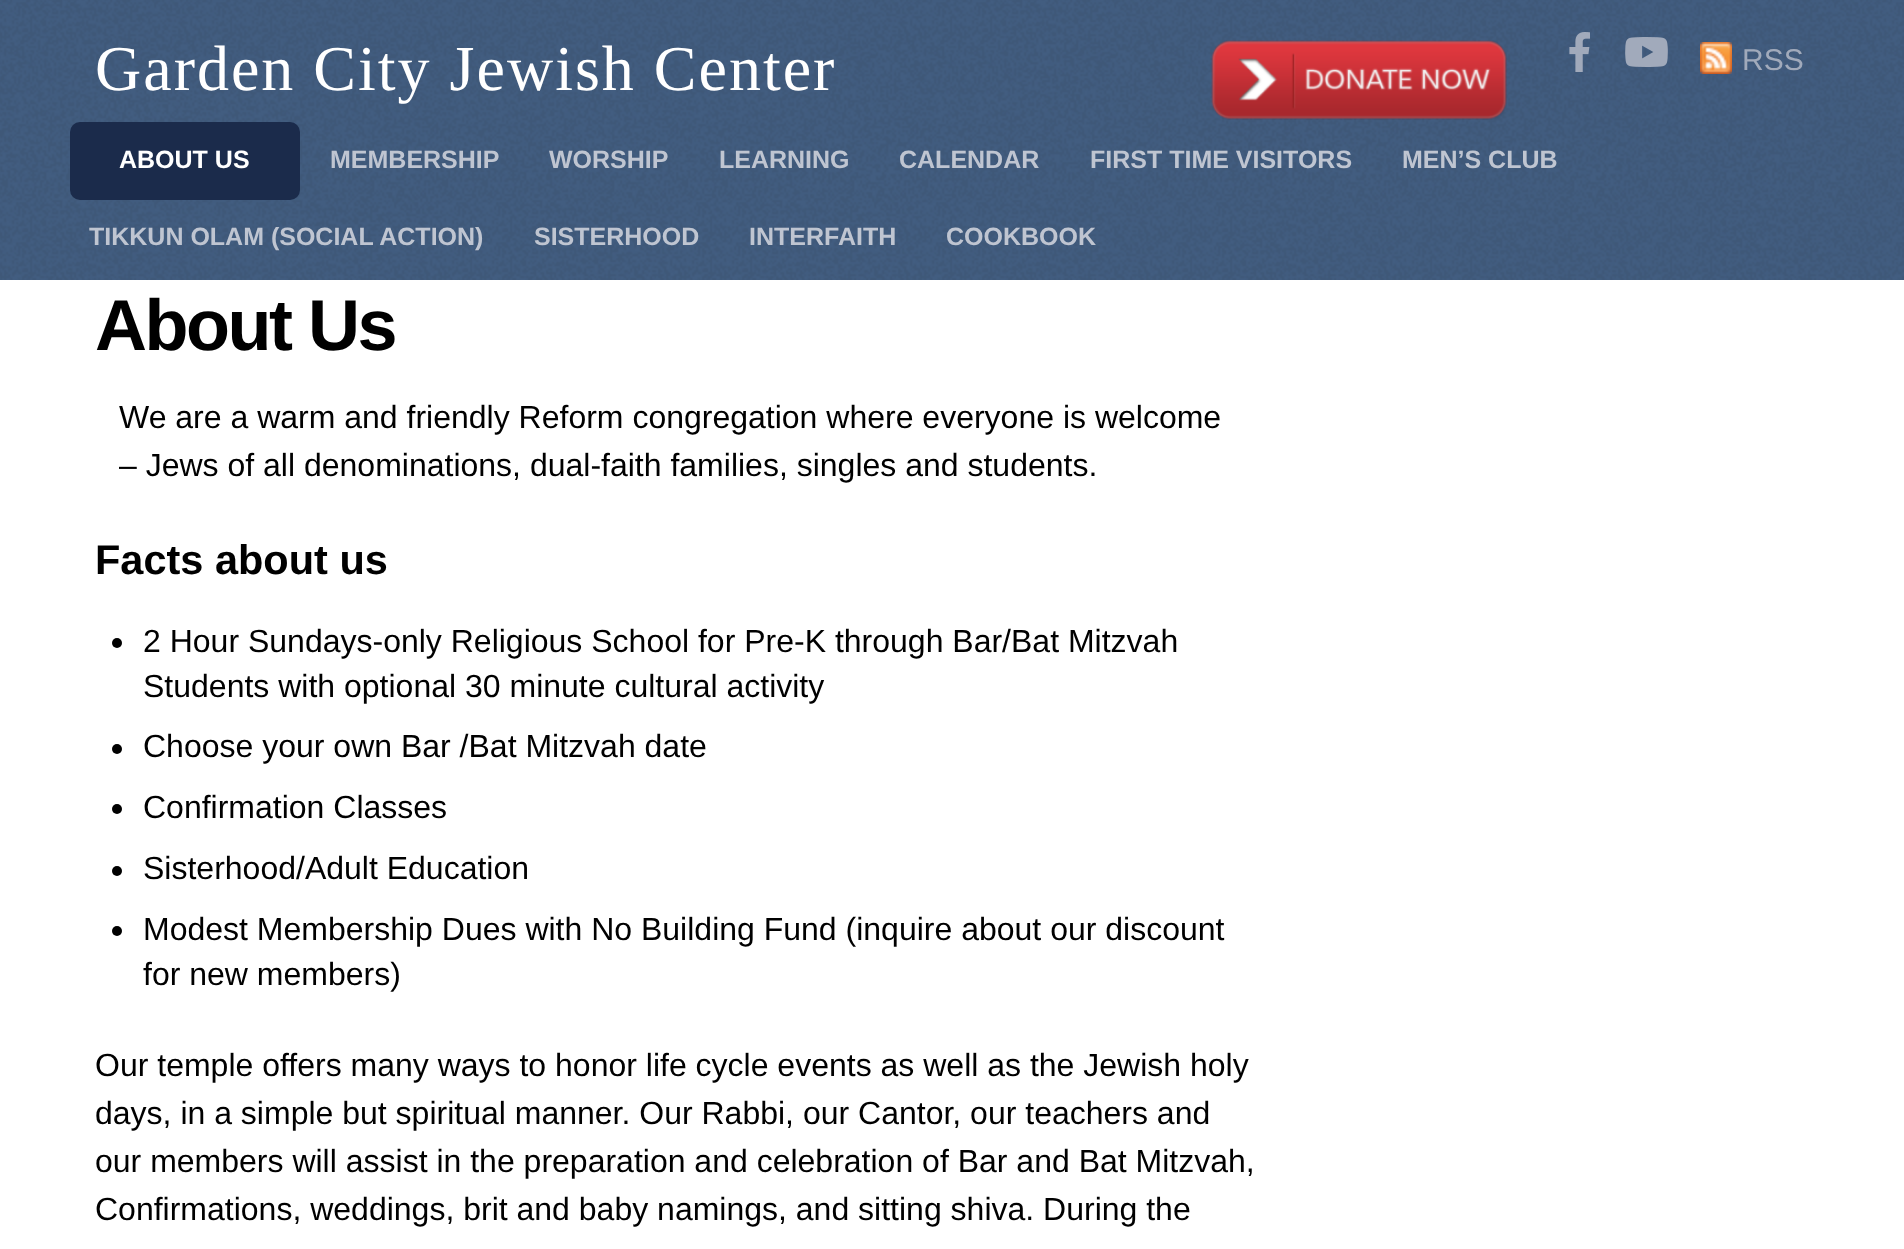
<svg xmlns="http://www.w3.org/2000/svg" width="1904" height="1249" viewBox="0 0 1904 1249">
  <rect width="100%" height="100%" fill="#fff"/>
  <image x="0" y="0" width="1904" height="280" href="img/1.png"/>
  <image x="1211" y="40" width="296" height="80" href="img/2.png"/>
  <image x="1569" y="32" width="21" height="40" href="img/3.png"/>
  <image x="1625" y="37" width="43" height="30" href="img/4.png"/>
  <image x="1700" y="42" width="32" height="32" href="img/5.png"/>
  <rect x="70" y="122" width="230" height="78" rx="10" fill="#1b2b4b"/>
  <circle cx="117" cy="643" r="5" fill="#000"/>
  <circle cx="117" cy="749" r="5" fill="#000"/>
  <circle cx="117" cy="809" r="5" fill="#000"/>
  <circle cx="117" cy="871" r="5" fill="#000"/>
  <circle cx="117" cy="931" r="5" fill="#000"/>
  <text x="95" y="90" font-family="Liberation Serif" font-size="64" letter-spacing="2" fill="#fff">Garden City Jewish Center</text>
  <text x="1742" y="70" font-family="Liberation Sans" font-size="30" fill="#a1aabb">RSS</text>
  <text x="119" y="168" font-family="Liberation Sans" font-size="25" font-weight="bold" fill="#fff">ABOUT US</text>
  <g font-family="Liberation Sans" font-size="25" font-weight="bold" fill="#bfc5d1">
    <text x="330" y="168">MEMBERSHIP</text>
    <text x="549" y="168">WORSHIP</text>
    <text x="719" y="168">LEARNING</text>
    <text x="899" y="168">CALENDAR</text>
    <text x="1090" y="168">FIRST TIME VISITORS</text>
    <text x="1402" y="168">MEN’S CLUB</text>
    <text x="89" y="245">TIKKUN OLAM (SOCIAL ACTION)</text>
    <text x="534" y="245">SISTERHOOD</text>
    <text x="749" y="245">INTERFAITH</text>
    <text x="946" y="245">COOKBOOK</text>
  </g>
  <text x="95" y="350" font-family="Liberation Sans" font-size="72" font-weight="bold" letter-spacing="-2.5" fill="#000">About Us</text>
  <g font-family="Liberation Sans" font-size="32" fill="#000">
    <text x="119" y="428">We are a warm and friendly Reform congregation where everyone is welcome</text>
    <text x="119" y="476">– Jews of all denominations, dual-faith families, singles and students.</text>
  </g>
  <text x="95" y="574" font-family="Liberation Sans" font-size="41.5" font-weight="bold" fill="#000">Facts about us</text>
  <g font-family="Liberation Sans" font-size="32" fill="#000">
    <text x="143" y="652">2 Hour Sundays-only Religious School for Pre-K through Bar/Bat Mitzvah</text>
    <text x="143" y="697">Students with optional 30 minute cultural activity</text>
    <text x="143" y="757">Choose your own Bar /Bat Mitzvah date</text>
    <text x="143" y="818">Confirmation Classes</text>
    <text x="143" y="879">Sisterhood/Adult Education</text>
    <text x="143" y="940">Modest Membership Dues with No Building Fund (inquire about our discount</text>
    <text x="143" y="985">for new members)</text>
    <text x="95" y="1076">Our temple offers many ways to honor life cycle events as well as the Jewish holy</text>
    <text x="95" y="1124">days, in a simple but spiritual manner. Our Rabbi, our Cantor, our teachers and</text>
    <text x="95" y="1172">our members will assist in the preparation and celebration of Bar and Bat Mitzvah,</text>
    <text x="95" y="1220">Confirmations, weddings, brit and baby namings, and sitting shiva. During the</text>
  </g>
</svg>
